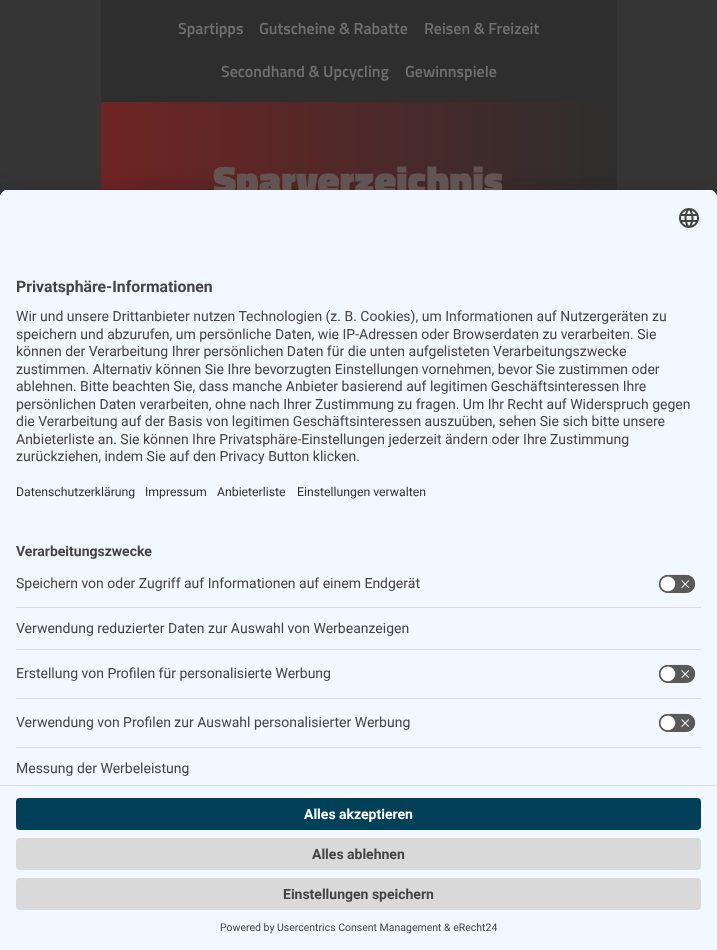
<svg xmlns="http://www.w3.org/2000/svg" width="717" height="950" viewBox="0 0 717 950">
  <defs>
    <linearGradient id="g1" gradientUnits="userSpaceOnUse" x1="101" y1="180" x2="617" y2="180"><stop offset="0" stop-color="#702424"/><stop offset="1" stop-color="#2e2e2e"/></linearGradient>
  </defs>
  <rect width="100%" height="100%" fill="#363637"/>
  <path d="M101 0h516v102H101z" fill="#2e2e2e"/>
  <path d="M101 102h516v88H101z" fill="url(#g1)"/>
  <rect y="210" width="717" height="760" rx="8" fill="#0000004d" filter="blur(14px)"/>
  <rect y="195" width="717" height="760" rx="8" fill="#00000038" filter="blur(13px)"/>
  <g font-family="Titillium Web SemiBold" font-size="16" font-weight="600" fill="#707070">
    <text x="178" y="34">Spartipps</text>
    <text x="259" y="34">Gutscheine &amp; Rabatte</text>
    <text x="424" y="34">Reisen &amp; Freizeit</text>
    <text x="221" y="77">Secondhand &amp; Upcycling</text>
    <text x="405" y="77">Gewinnspiele</text>
  </g>
  <text x="213" y="194" font-family="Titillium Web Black" font-size="40" font-weight="900" fill="#635454">Sparverzeichnis</text>
  <path d="M8 190H709C713.5 190 717 193.5 717 198V950H0V198C0 193.5 3.5 190 8 190Z" fill="#f1f8ff"/>
  <path d="M8 190H709C713.5 190 717 193.5 717 198V785H0V198C0 193.5 3.5 190 8 190Z" fill="#f1f8ff"/>
  <path d="M8 190H709C713.5 190 717 193.5 717 198V531H0V198C0 193.5 3.5 190 8 190Z" fill="#f1f8ff"/>
  <image x="679" y="208" width="20" height="20" href="img/1.png"/>
  <text x="16" y="292" font-family="Roboto" font-size="15.75" font-weight="bold" fill="#444">Privatsphäre-Informationen</text>
  <g font-family="Roboto" font-size="14" fill="#444">
    <text x="16" y="321">Wir und unsere Drittanbieter nutzen Technologien (z. B. Cookies), um Informationen auf Nutzergeräten zu</text>
    <text x="16" y="339">speichern und abzurufen, um persönliche Daten, wie IP-Adressen oder Browserdaten zu verarbeiten. Sie</text>
    <text x="16" y="356">können der Verarbeitung Ihrer persönlichen Daten für die unten aufgelisteten Verarbeitungszwecke</text>
    <text x="16" y="374">zustimmen. Alternativ können Sie Ihre bevorzugten Einstellungen vornehmen, bevor Sie zustimmen oder</text>
    <text x="16" y="391">ablehnen. Bitte beachten Sie, dass manche Anbieter basierend auf legitimen Geschäftsinteressen Ihre</text>
    <text x="16" y="409">persönlichen Daten verarbeiten, ohne nach Ihrer Zustimmung zu fragen. Um Ihr Recht auf Widerspruch gegen</text>
    <text x="16" y="426">die Verarbeitung auf der Basis von legitimen Geschäftsinteressen auszuüben, sehen Sie sich bitte unsere</text>
    <text x="16" y="444">Anbieterliste an. Sie können Ihre Privatsphäre-Einstellungen jederzeit ändern oder Ihre Zustimmung</text>
    <text x="16" y="461">zurückziehen, indem Sie auf den Privacy Button klicken.</text>
  </g>
  <g font-family="Roboto" font-size="12.25" fill="#303030">
    <text x="16" y="496">Datenschutzerklärung</text>
    <text x="145" y="496">Impressum</text>
    <text x="217" y="496">Anbieterliste</text>
    <text x="297" y="496">Einstellungen verwalten</text>
  </g>
  <text x="16" y="556" font-family="Roboto" font-size="14" font-weight="bold" fill="#444">Verarbeitungszwecke</text>
  <path d="M16 607h685v1H16z" fill="#ddd"/>
  <text x="16" y="588" font-family="Roboto" font-size="14" fill="#444">Speichern von oder Zugriff auf Informationen auf einem Endgerät</text>
  <image x="658" y="574" width="38" height="20" href="img/2.png"/>
  <path d="M16 649h685v1H16z" fill="#ddd"/>
  <text x="16" y="633" font-family="Roboto" font-size="14" fill="#444">Verwendung reduzierter Daten zur Auswahl von Werbeanzeigen</text>
  <path d="M16 698h685v1H16z" fill="#ddd"/>
  <text x="16" y="678" font-family="Roboto" font-size="14" fill="#444">Erstellung von Profilen für personalisierte Werbung</text>
  <image x="658" y="664" width="38" height="20" href="img/2.png"/>
  <path d="M16 747h685v1H16z" fill="#ddd"/>
  <text x="16" y="727" font-family="Roboto" font-size="14" fill="#444">Verwendung von Profilen zur Auswahl personalisierter Werbung</text>
  <image x="658" y="713" width="38" height="20" href="img/2.png"/>
  <text x="16" y="773" font-family="Roboto" font-size="14" fill="#444">Messung der Werbeleistung</text>
  <path d="M0 785h717v1H0z" fill="#ddd"/>
  <rect x="16" y="798" width="685" height="32" rx="4" fill="#004059"/>
  <text x="304" y="819" font-family="Roboto" font-size="14" font-weight="bold" fill="#fff">Alles akzeptieren</text>
  <rect x="16" y="838" width="685" height="32" rx="4" fill="#d9d9d9"/>
  <text x="312" y="859" font-family="Roboto" font-size="14" font-weight="bold" fill="#444">Alles ablehnen</text>
  <rect x="16" y="878" width="685" height="32" rx="4" fill="#d9d9d9"/>
  <text x="283" y="899" font-family="Roboto" font-size="14" font-weight="bold" fill="#444">Einstellungen speichern</text>
  <text x="220" y="931" font-family="Roboto" font-size="10.5" fill="#444">Powered by Usercentrics Consent Management &amp; eRecht24</text>
</svg>
